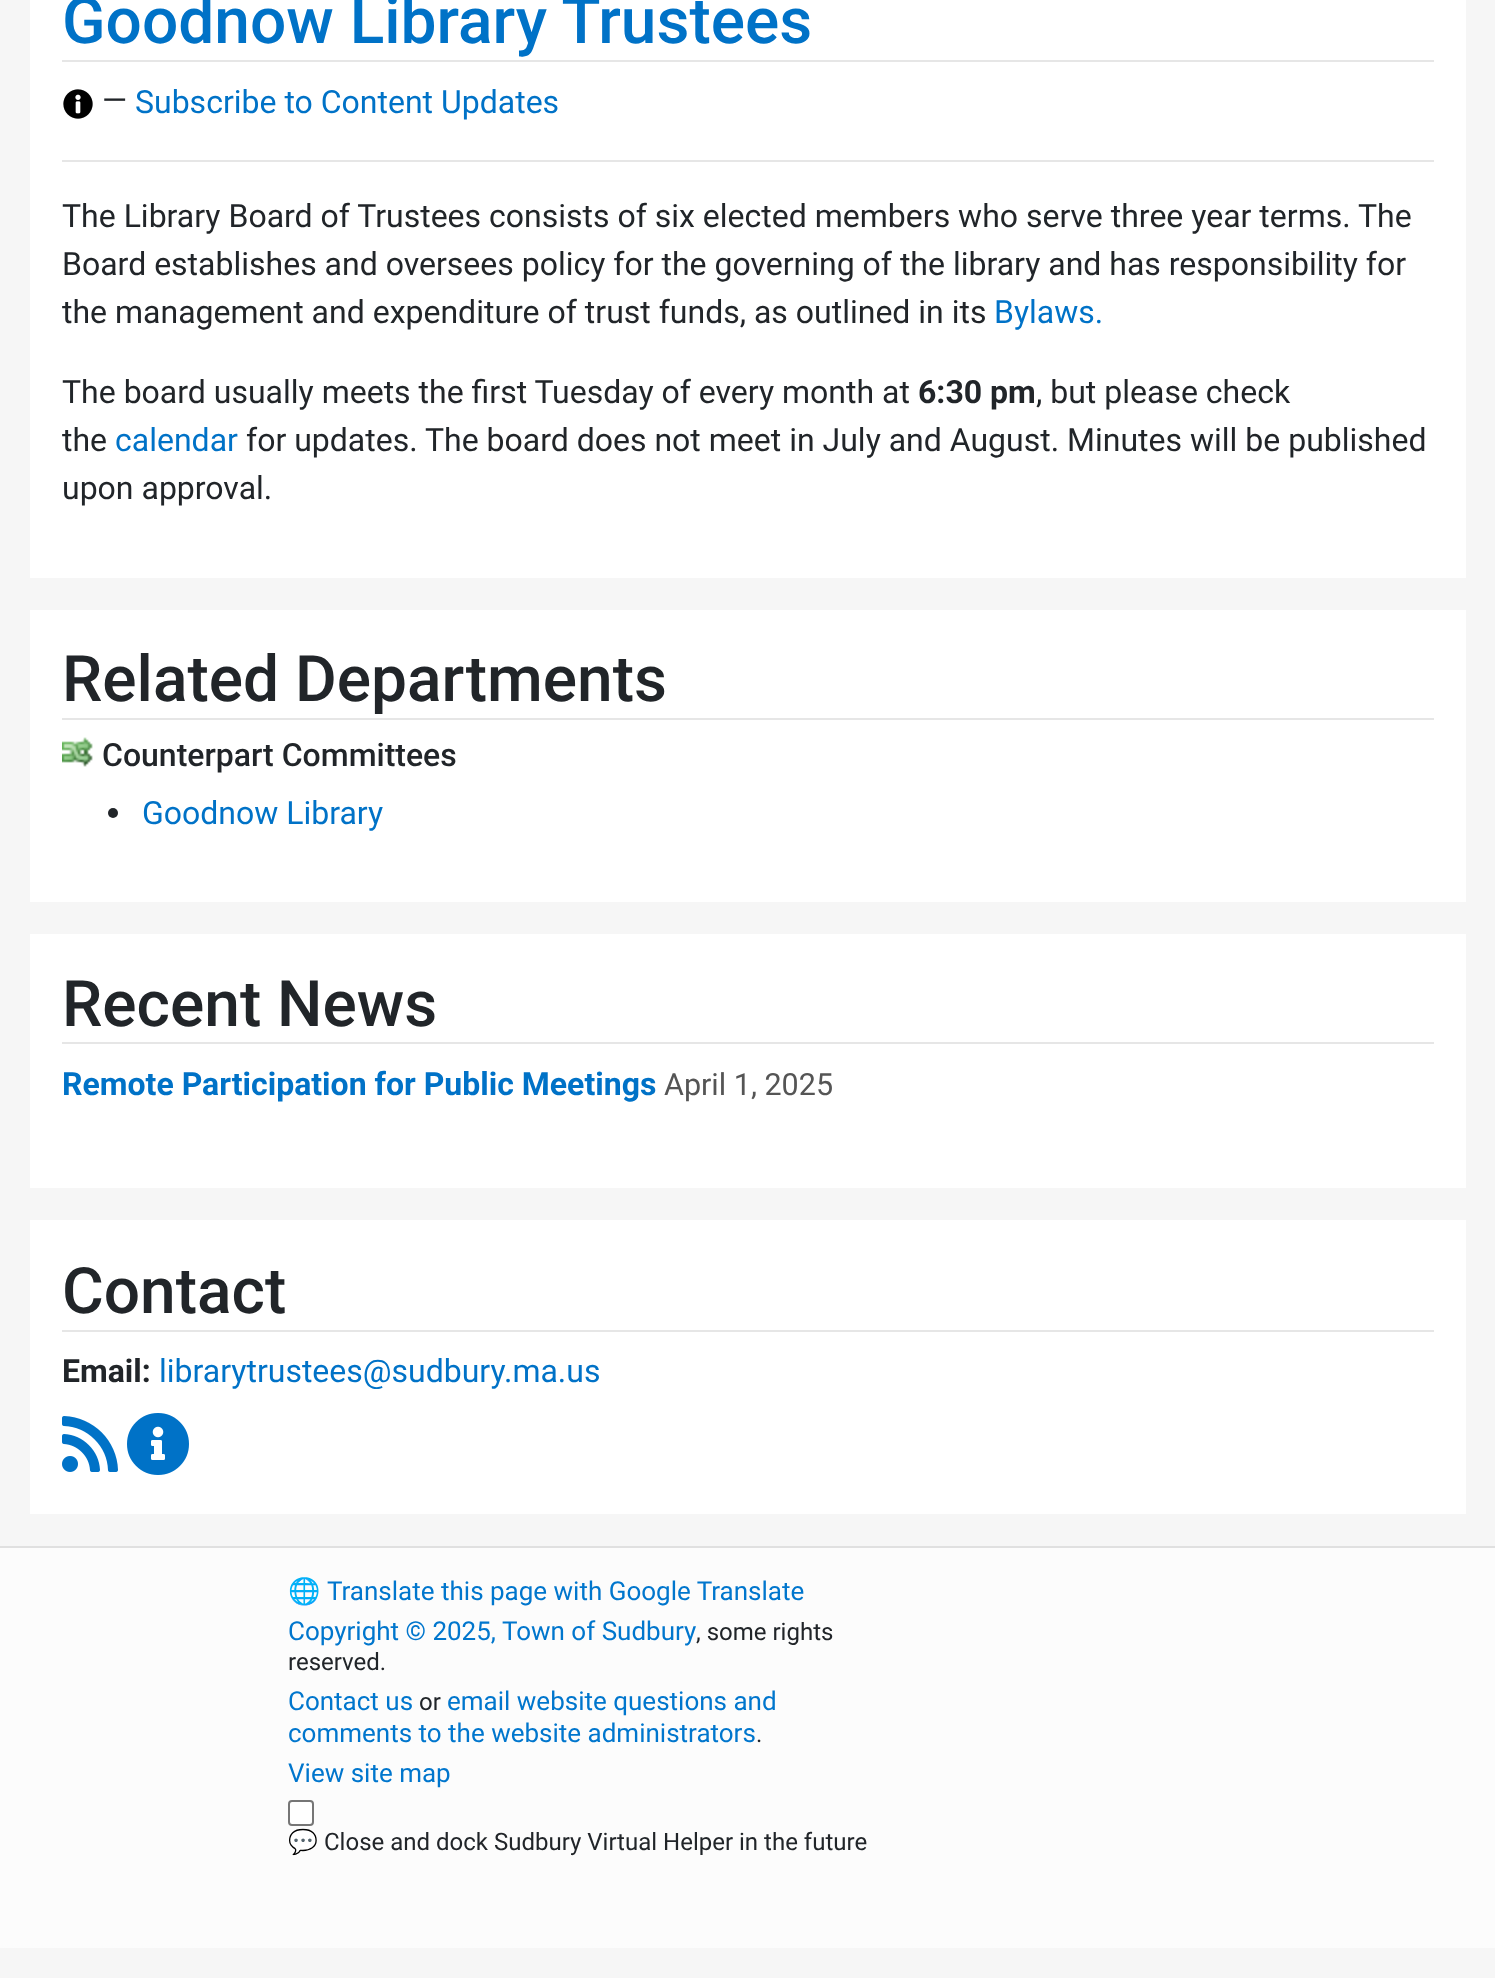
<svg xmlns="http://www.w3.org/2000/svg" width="1495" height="1978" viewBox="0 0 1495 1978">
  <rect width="100%" height="100%" fill="#f6f6f6"/>
  <path d="M30 0h1436v578H30z" fill="#fff"/>
  <path d="M62 60h1372v2H62z" fill="#e6e6e6"/>
  <image x="63" y="89" width="30" height="30" href="img/1.png"/>
  <path d="M62 160h1372v2H62z" fill="#e6e6e6"/>
  <path d="M30 610h1436v292H30z" fill="#fff"/>
  <path d="M62 718h1372v2H62z" fill="#e6e6e6"/>
  <image x="62" y="737" width="31" height="30" href="img/2.png"/>
  <circle cx="113" cy="813" r="5" fill="#212529"/>
  <path d="M30 934h1436v254H30z" fill="#fff"/>
  <path d="M62 1042h1372v2H62z" fill="#e6e6e6"/>
  <path d="M30 1220h1436v294H30z" fill="#fff"/>
  <path d="M62 1330h1372v2H62z" fill="#e6e6e6"/>
  <image x="62" y="1416" width="56" height="56" href="img/3.png"/>
  <image x="127" y="1413" width="62" height="62" href="img/4.png"/>
  <path d="M0 1548h1495v400H0z" fill="#fcfcfc"/>
  <path d="M0 1546h1495v2H0z" fill="#e0e0e0"/>
  <rect x="289" y="1801" width="24" height="24" rx="3" fill="#fff" stroke="#767676" stroke-width="2"/>
  <text x="62" y="43" font-family="Roboto" font-size="64" font-weight="500" fill="#0072c7">Goodnow Library Trustees</text>
  <text x="102" y="111" font-family="Roboto" font-size="32" fill="#212529">—</text>
  <text x="135" y="113" font-family="Roboto" font-size="32" fill="#0072c7">Subscribe to Content Updates</text>
  <g font-family="Roboto" font-size="32" fill="#212529">
    <text x="62" y="227">The Library Board of Trustees consists of six elected members who serve three year terms. The</text>
    <text x="62" y="275">Board establishes and oversees policy for the governing of the library and has responsibility for</text>
    <text x="62" y="323">the management and expenditure of trust funds, as outlined in its</text>
  </g>
  <text x="994" y="323" font-family="Roboto" font-size="32" fill="#0072c7">Bylaws.</text>
  <text x="62" y="403" font-family="Roboto" font-size="32" fill="#212529">The board usually meets the first Tuesday of every month at</text>
  <text x="918" y="403" font-family="Roboto" font-size="32" font-weight="bold" fill="#212529">6:30 pm</text>
  <g font-family="Roboto" font-size="32" fill="#212529">
    <text x="1036" y="403">, but please check</text>
    <text x="62" y="451">the</text>
  </g>
  <text x="115" y="451" font-family="Roboto" font-size="32" fill="#0072c7">calendar</text>
  <g font-family="Roboto" font-size="32" fill="#212529">
    <text x="246" y="451">for updates. The board does not meet in July and August. Minutes will be published</text>
    <text x="62" y="499">upon approval.</text>
  </g>
  <text x="62" y="701" font-family="Roboto" font-size="64" font-weight="500" fill="#212529">Related Departments</text>
  <text x="102" y="766" font-family="Roboto" font-size="32" font-weight="500" fill="#212529">Counterpart Committees</text>
  <text x="142" y="824" font-family="Roboto" font-size="32" fill="#0072c7">Goodnow Library</text>
  <text x="62" y="1026" font-family="Roboto" font-size="64" font-weight="500" fill="#212529">Recent News</text>
  <text x="62" y="1095" font-family="Roboto" font-size="32" font-weight="bold" fill="#0072c7">Remote Participation for Public Meetings</text>
  <text x="664" y="1095" font-family="Roboto" font-size="30.5" fill="#555">April 1, 2025</text>
  <text x="62" y="1313" font-family="Roboto" font-size="64" font-weight="500" fill="#212529">Contact</text>
  <text x="62" y="1382" font-family="Roboto" font-size="32" font-weight="bold" fill="#212529">Email:</text>
  <text x="159" y="1382" font-family="Roboto" font-size="32" fill="#0072c7">librarytrustees@sudbury.ma.us</text>
  <text x="288" y="1600" font-family="Noto Color Emoji" font-size="26" fill="#0076cd">🌐</text>
  <g font-family="Roboto" font-size="26" fill="#0076cd">
    <text x="327" y="1600">Translate this page with Google Translate</text>
    <text x="288" y="1640">Copyright © 2025, Town of Sudbury</text>
  </g>
  <g font-family="Roboto" font-size="24" fill="#212529">
    <text x="696" y="1640">, some rights</text>
    <text x="288" y="1670">reserved.</text>
  </g>
  <text x="288" y="1710" font-family="Roboto" font-size="26" fill="#0076cd">Contact us</text>
  <text x="419" y="1710" font-family="Roboto" font-size="24" fill="#212529">or</text>
  <g font-family="Roboto" font-size="26" fill="#0076cd">
    <text x="447" y="1710">email website questions and</text>
    <text x="288" y="1742">comments to the website administrators</text>
  </g>
  <text x="756" y="1742" font-family="Roboto" font-size="24" fill="#212529">.</text>
  <text x="288" y="1782" font-family="Roboto" font-size="26" fill="#0076cd">View site map</text>
  <text x="288" y="1850" font-family="Noto Color Emoji" font-size="24" fill="#212529">💬</text>
  <text x="324" y="1850" font-family="Roboto" font-size="24" fill="#212529">Close and dock Sudbury Virtual Helper in the future</text>
</svg>
